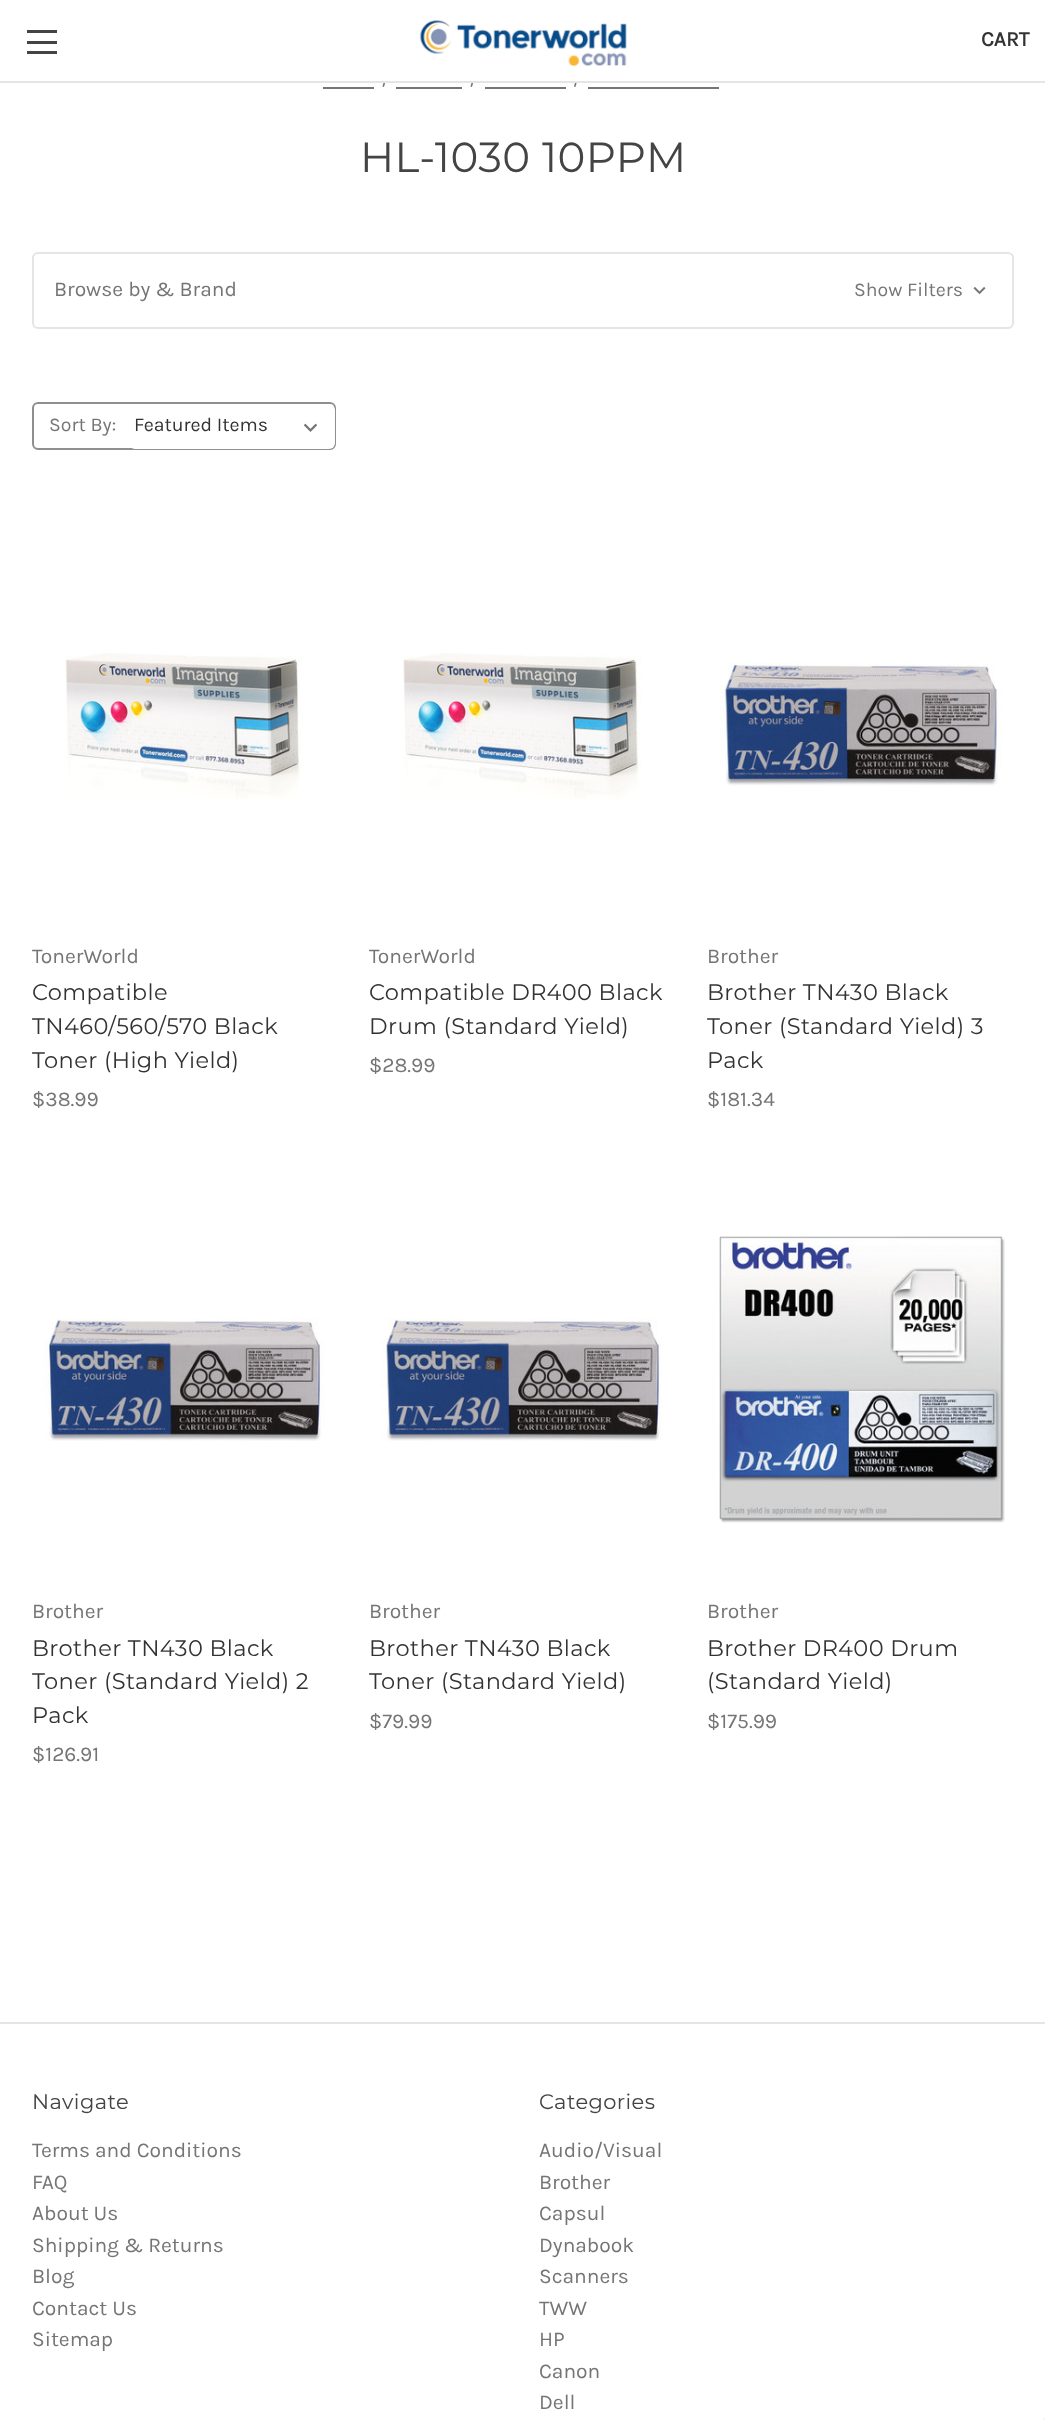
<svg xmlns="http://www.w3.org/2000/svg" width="1045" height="2420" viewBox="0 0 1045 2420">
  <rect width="100%" height="100%" fill="#fff"/>
  <path d="M386.5 71.5L388 72L384 87L382.5 86.5Z" fill="#757575"/>
  <path d="M474.5 71.5L476 72L472 87L470.5 86.5Z" fill="#757575"/>
  <path d="M578 71.5L579.5 72L575.5 87L574 86.5Z" fill="#757575"/>
  <path d="M384 71h196v10H384z" fill="#fff"/>
  <path d="M0 81h1045v2H0z" fill="#e5e5e5"/>
  <path d="M27 41h30v3H27z" fill="#444"/>
  <path d="M27 30h30v3H27z" fill="#444"/>
  <path d="M27 51h30v3H27z" fill="#444"/>
  <image x="419" y="20" width="208" height="46" href="img/1.png"/>
  <path d="M323 87h51v2H323z" fill="#757575"/>
  <path d="M396 87h66v2H396z" fill="#757575"/>
  <path d="M485 87h81v2H485z" fill="#757575"/>
  <path d="M588 87h131v2H588z" fill="#757575"/>
  <rect x="33" y="253" width="980" height="75" rx="5" fill="none" stroke="#e5e5e5" stroke-width="2"/>
  <image x="973" y="287" width="13" height="8" href="img/2.png"/>
  <rect x="33" y="403" width="302" height="46" rx="5" fill="none" stroke="#8f8f8f" stroke-width="2"/>
  <rect x="129" y="404" width="206" height="45" rx="6" fill="#fff"/>
  <image x="303" y="423" width="15" height="9" href="img/3.png"/>
  <image x="65" y="653" width="237" height="148" href="img/4.png"/>
  <image x="403" y="653" width="239" height="148" href="img/5.png"/>
  <image x="720" y="663" width="282" height="123" href="img/6.png"/>
  <image x="44" y="1318" width="281" height="123" href="img/7.png"/>
  <image x="381" y="1318" width="282" height="123" href="img/8.png"/>
  <image x="719" y="1236" width="286" height="287" href="img/9.png"/>
  <path d="M0 2022h1045v2H0z" fill="#e5e5e5"/>
  <path d="M1043 2418h2v2H1043z" fill="#f5f5f5"/>
  <text x="981" y="46" font-family="Karla" font-size="21" font-weight="bold" fill="#333">CART</text>
  <text x="360" y="172" font-family="Montserrat" font-size="42" letter-spacing="0.4" fill="#444">HL-1030 10PPM</text>
  <text x="54" y="296" font-family="Karla" font-size="21" fill="#757575">Browse by &amp; Brand</text>
  <g font-family="Karla" font-size="19.5" fill="#757575">
    <text x="854" y="296">Show Filters</text>
    <text x="49" y="431">Sort By:</text>
  </g>
  <text x="134" y="431" font-family="Karla" font-size="19.5" fill="#333">Featured Items</text>
  <text x="32" y="963" font-family="Karla" font-size="21" fill="#757575">TonerWorld</text>
  <g font-family="Montserrat" font-size="22.5" letter-spacing="0.4" fill="#333">
    <text x="32" y="1000">Compatible</text>
    <text x="32" y="1034">TN460/560/570 Black</text>
    <text x="32" y="1068">Toner (High Yield)</text>
  </g>
  <g font-family="Karla" font-size="21" fill="#757575">
    <text x="32" y="1106">$38.99</text>
    <text x="369" y="963">TonerWorld</text>
  </g>
  <g font-family="Montserrat" font-size="22.5" letter-spacing="0.4" fill="#333">
    <text x="369" y="1000">Compatible DR400 Black</text>
    <text x="369" y="1034">Drum (Standard Yield)</text>
  </g>
  <g font-family="Karla" font-size="21" fill="#757575">
    <text x="369" y="1072">$28.99</text>
    <text x="707" y="963">Brother</text>
  </g>
  <g font-family="Montserrat" font-size="22.5" letter-spacing="0.4" fill="#333">
    <text x="707" y="1000">Brother TN430 Black</text>
    <text x="707" y="1034">Toner (Standard Yield) 3</text>
    <text x="707" y="1068">Pack</text>
  </g>
  <g font-family="Karla" font-size="21" fill="#757575">
    <text x="707" y="1106">$181.34</text>
    <text x="32" y="1618">Brother</text>
  </g>
  <g font-family="Montserrat" font-size="22.5" letter-spacing="0.4" fill="#333">
    <text x="32" y="1656">Brother TN430 Black</text>
    <text x="32" y="1689">Toner (Standard Yield) 2</text>
    <text x="32" y="1723">Pack</text>
  </g>
  <g font-family="Karla" font-size="21" fill="#757575">
    <text x="32" y="1761">$126.91</text>
    <text x="369" y="1618">Brother</text>
  </g>
  <g font-family="Montserrat" font-size="22.5" letter-spacing="0.4" fill="#333">
    <text x="369" y="1656">Brother TN430 Black</text>
    <text x="369" y="1689">Toner (Standard Yield)</text>
  </g>
  <g font-family="Karla" font-size="21" fill="#757575">
    <text x="369" y="1728">$79.99</text>
    <text x="707" y="1618">Brother</text>
  </g>
  <g font-family="Montserrat" font-size="22.5" letter-spacing="0.4" fill="#333">
    <text x="707" y="1656">Brother DR400 Drum</text>
    <text x="707" y="1689">(Standard Yield)</text>
  </g>
  <text x="707" y="1728" font-family="Karla" font-size="21" fill="#757575">$175.99</text>
  <text x="32" y="2109" font-family="Montserrat" font-size="21" letter-spacing="0.4" fill="#444">Navigate</text>
  <g font-family="Karla" font-size="21" fill="#757575">
    <text x="32" y="2157">Terms and Conditions</text>
    <text x="32" y="2189">FAQ</text>
    <text x="32" y="2220">About Us</text>
    <text x="32" y="2252">Shipping &amp; Returns</text>
    <text x="32" y="2283">Blog</text>
    <text x="32" y="2315">Contact Us</text>
    <text x="32" y="2346">Sitemap</text>
  </g>
  <text x="539" y="2109" font-family="Montserrat" font-size="21" letter-spacing="0.4" fill="#444">Categories</text>
  <g font-family="Karla" font-size="21" fill="#757575">
    <text x="539" y="2157">Audio/Visual</text>
    <text x="539" y="2189">Brother</text>
    <text x="539" y="2220">Capsul</text>
    <text x="539" y="2252">Dynabook</text>
    <text x="539" y="2283">Scanners</text>
    <text x="539" y="2315">TWW</text>
    <text x="539" y="2346">HP</text>
    <text x="539" y="2378">Canon</text>
    <text x="539" y="2409">Dell</text>
  </g>
</svg>
